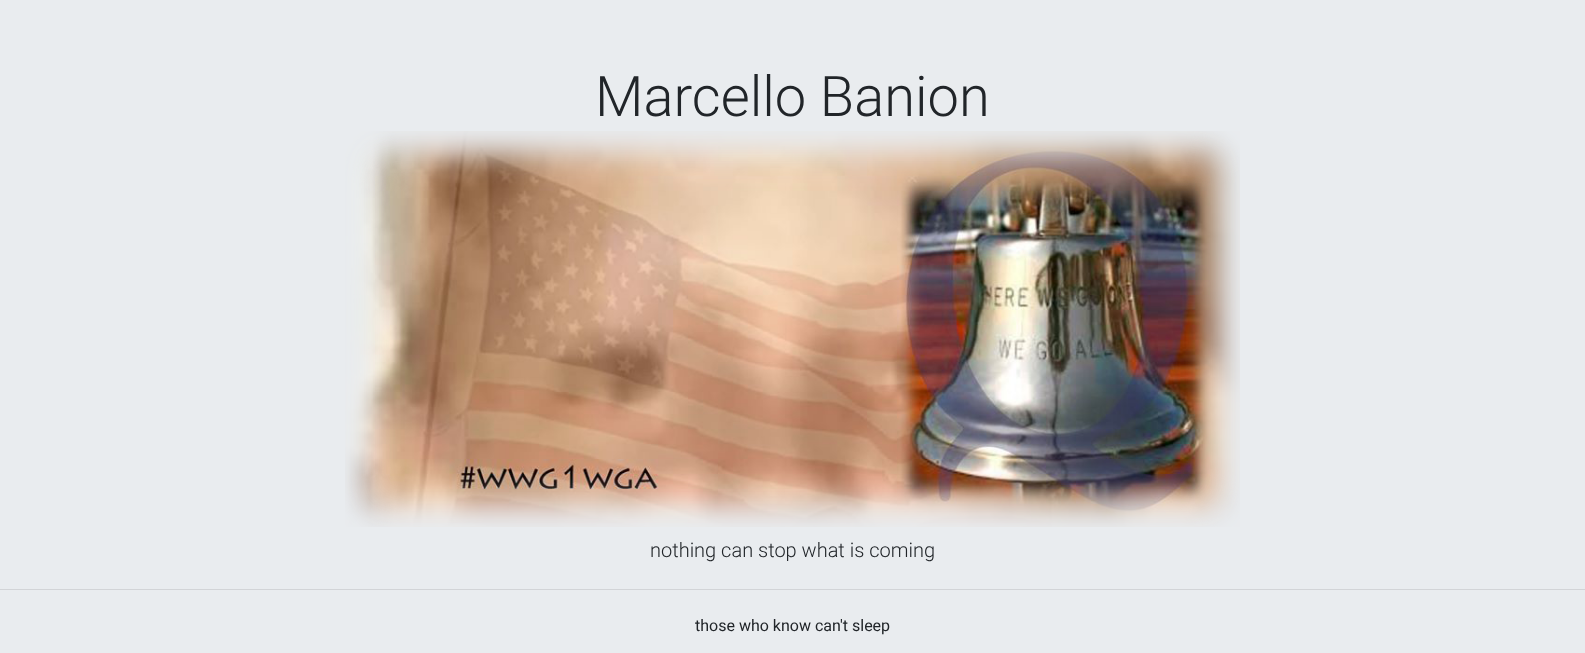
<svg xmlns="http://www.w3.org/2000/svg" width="1585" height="653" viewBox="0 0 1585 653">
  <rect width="100%" height="100%" fill="#e9ecef"/>
  <image x="345" y="131" width="895" height="396" href="img/1.png"/>
  <path d="M0 589h1585v1H0z" fill="#d2d4d7"/>
  <text x="595" y="116" font-family="Roboto" font-size="56" font-weight="300" fill="#212529">Marcello Banion</text>
  <text x="650" y="557" font-family="Roboto" font-size="20" font-weight="300" fill="#212529">nothing can stop what is coming</text>
  <text x="695" y="631" font-family="Roboto" font-size="16" fill="#212529">those who know can't sleep</text>
</svg>
